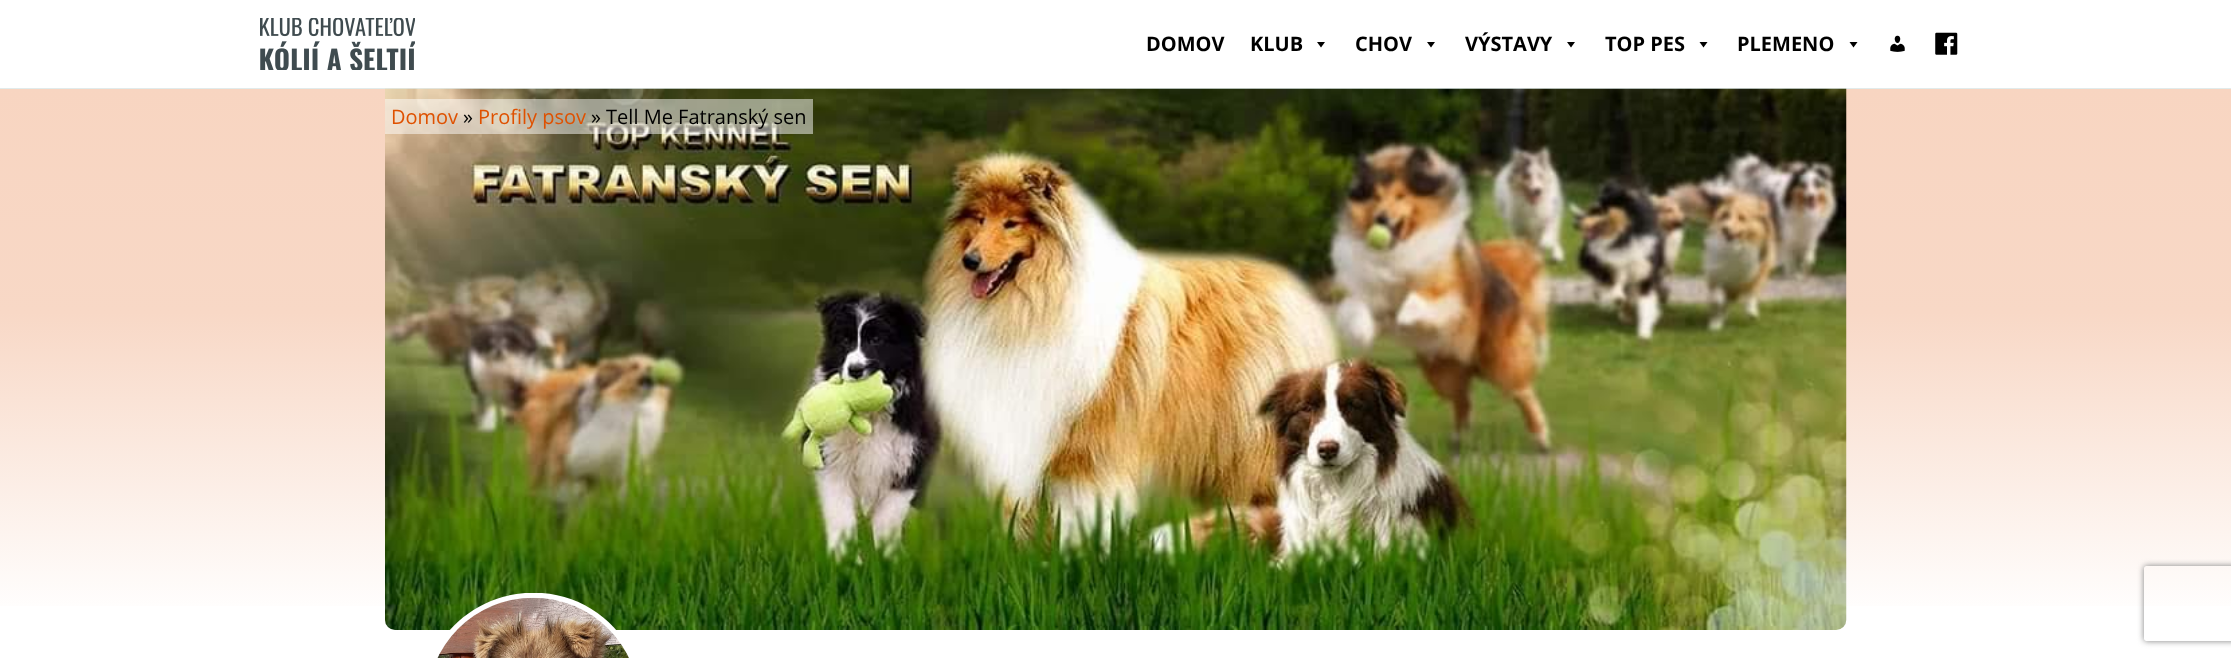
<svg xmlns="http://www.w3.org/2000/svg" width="2231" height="658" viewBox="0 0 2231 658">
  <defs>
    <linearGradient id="g1" gradientUnits="userSpaceOnUse" x1="1116" y1="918" x2="1116" y2="89"><stop offset="0" stop-color="#fff"/><stop offset="0.36" stop-color="#fff"/><stop offset="0.73" stop-color="#f8d8c6"/><stop offset="1" stop-color="#f8d5c1"/></linearGradient>
    <clipPath id="clip1"><path d="M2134 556H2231V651H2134ZM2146.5 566H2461.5C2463 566 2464 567 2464 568.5V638.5C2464 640 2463 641 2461.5 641H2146.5C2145 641 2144 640 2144 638.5V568.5C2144 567 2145 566 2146.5 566Z" clip-rule="evenodd"/></clipPath>
  </defs>
  <rect width="100%" height="100%" fill="#fff"/>
  <path d="M0 88h2231v1H0z" fill="#e1ebeb"/>
  <image x="260" y="18" width="155" height="52" href="img/1.png"/>
  <path d="M1325 42L1321 47.5L1317 42Z" fill="#000"/>
  <path d="M1435 42L1431 47.5L1427 42Z" fill="#000"/>
  <path d="M1575 42L1571 47.5L1567 42Z" fill="#000"/>
  <path d="M1707.5 42L1703.5 47.5L1699.5 42Z" fill="#000"/>
  <path d="M1857.5 42L1853.5 47.5L1849.5 42Z" fill="#000"/>
  <image x="1890" y="35" width="15" height="17" href="img/2.png"/>
  <image x="1935" y="32" width="23" height="23" href="img/3.png"/>
  <path d="M0 89h2231v517H0z" fill="url(#g1)"/>
  <image x="385" y="88" width="1462" height="542" href="img/4.png"/>
  <path d="M423 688C430 637 472 597 525 593H542C599 597 644 645 644 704C644 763 598 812 539 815H527C474 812 430 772 423 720Z" fill="#fff"/>
  <image x="437" y="597" width="192" height="61" href="img/5.png"/>
  <path d="M385 99h428v35H385z" fill="#ffffff80"/>
  <g clip-path="url(#clip1)">
    <rect x="2144" y="566" width="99" height="75" rx="2.5" fill="#808080" filter="blur(3px)"/>
  </g>
  <g font-family="Open Sans" font-size="20" font-weight="bold" fill="#000">
    <text x="1146" y="51">DOMOV</text>
    <text x="1250" y="51">KLUB</text>
    <text x="1355" y="51">CHOV</text>
    <text x="1465" y="51">VÝSTAVY</text>
    <text x="1605" y="51">TOP PES</text>
    <text x="1737" y="51">PLEMENO</text>
  </g>
  <text x="391" y="124" font-family="Open Sans" font-size="20" fill="#df5100">Domov</text>
  <text x="463" y="124" font-family="Open Sans" font-size="20" fill="#000">»</text>
  <text x="478" y="124" font-family="Open Sans" font-size="20" fill="#df5100">Profily psov</text>
  <text x="591" y="124" font-family="Open Sans" font-size="20" fill="#000">» Tell Me Fatranský sen</text>
</svg>
